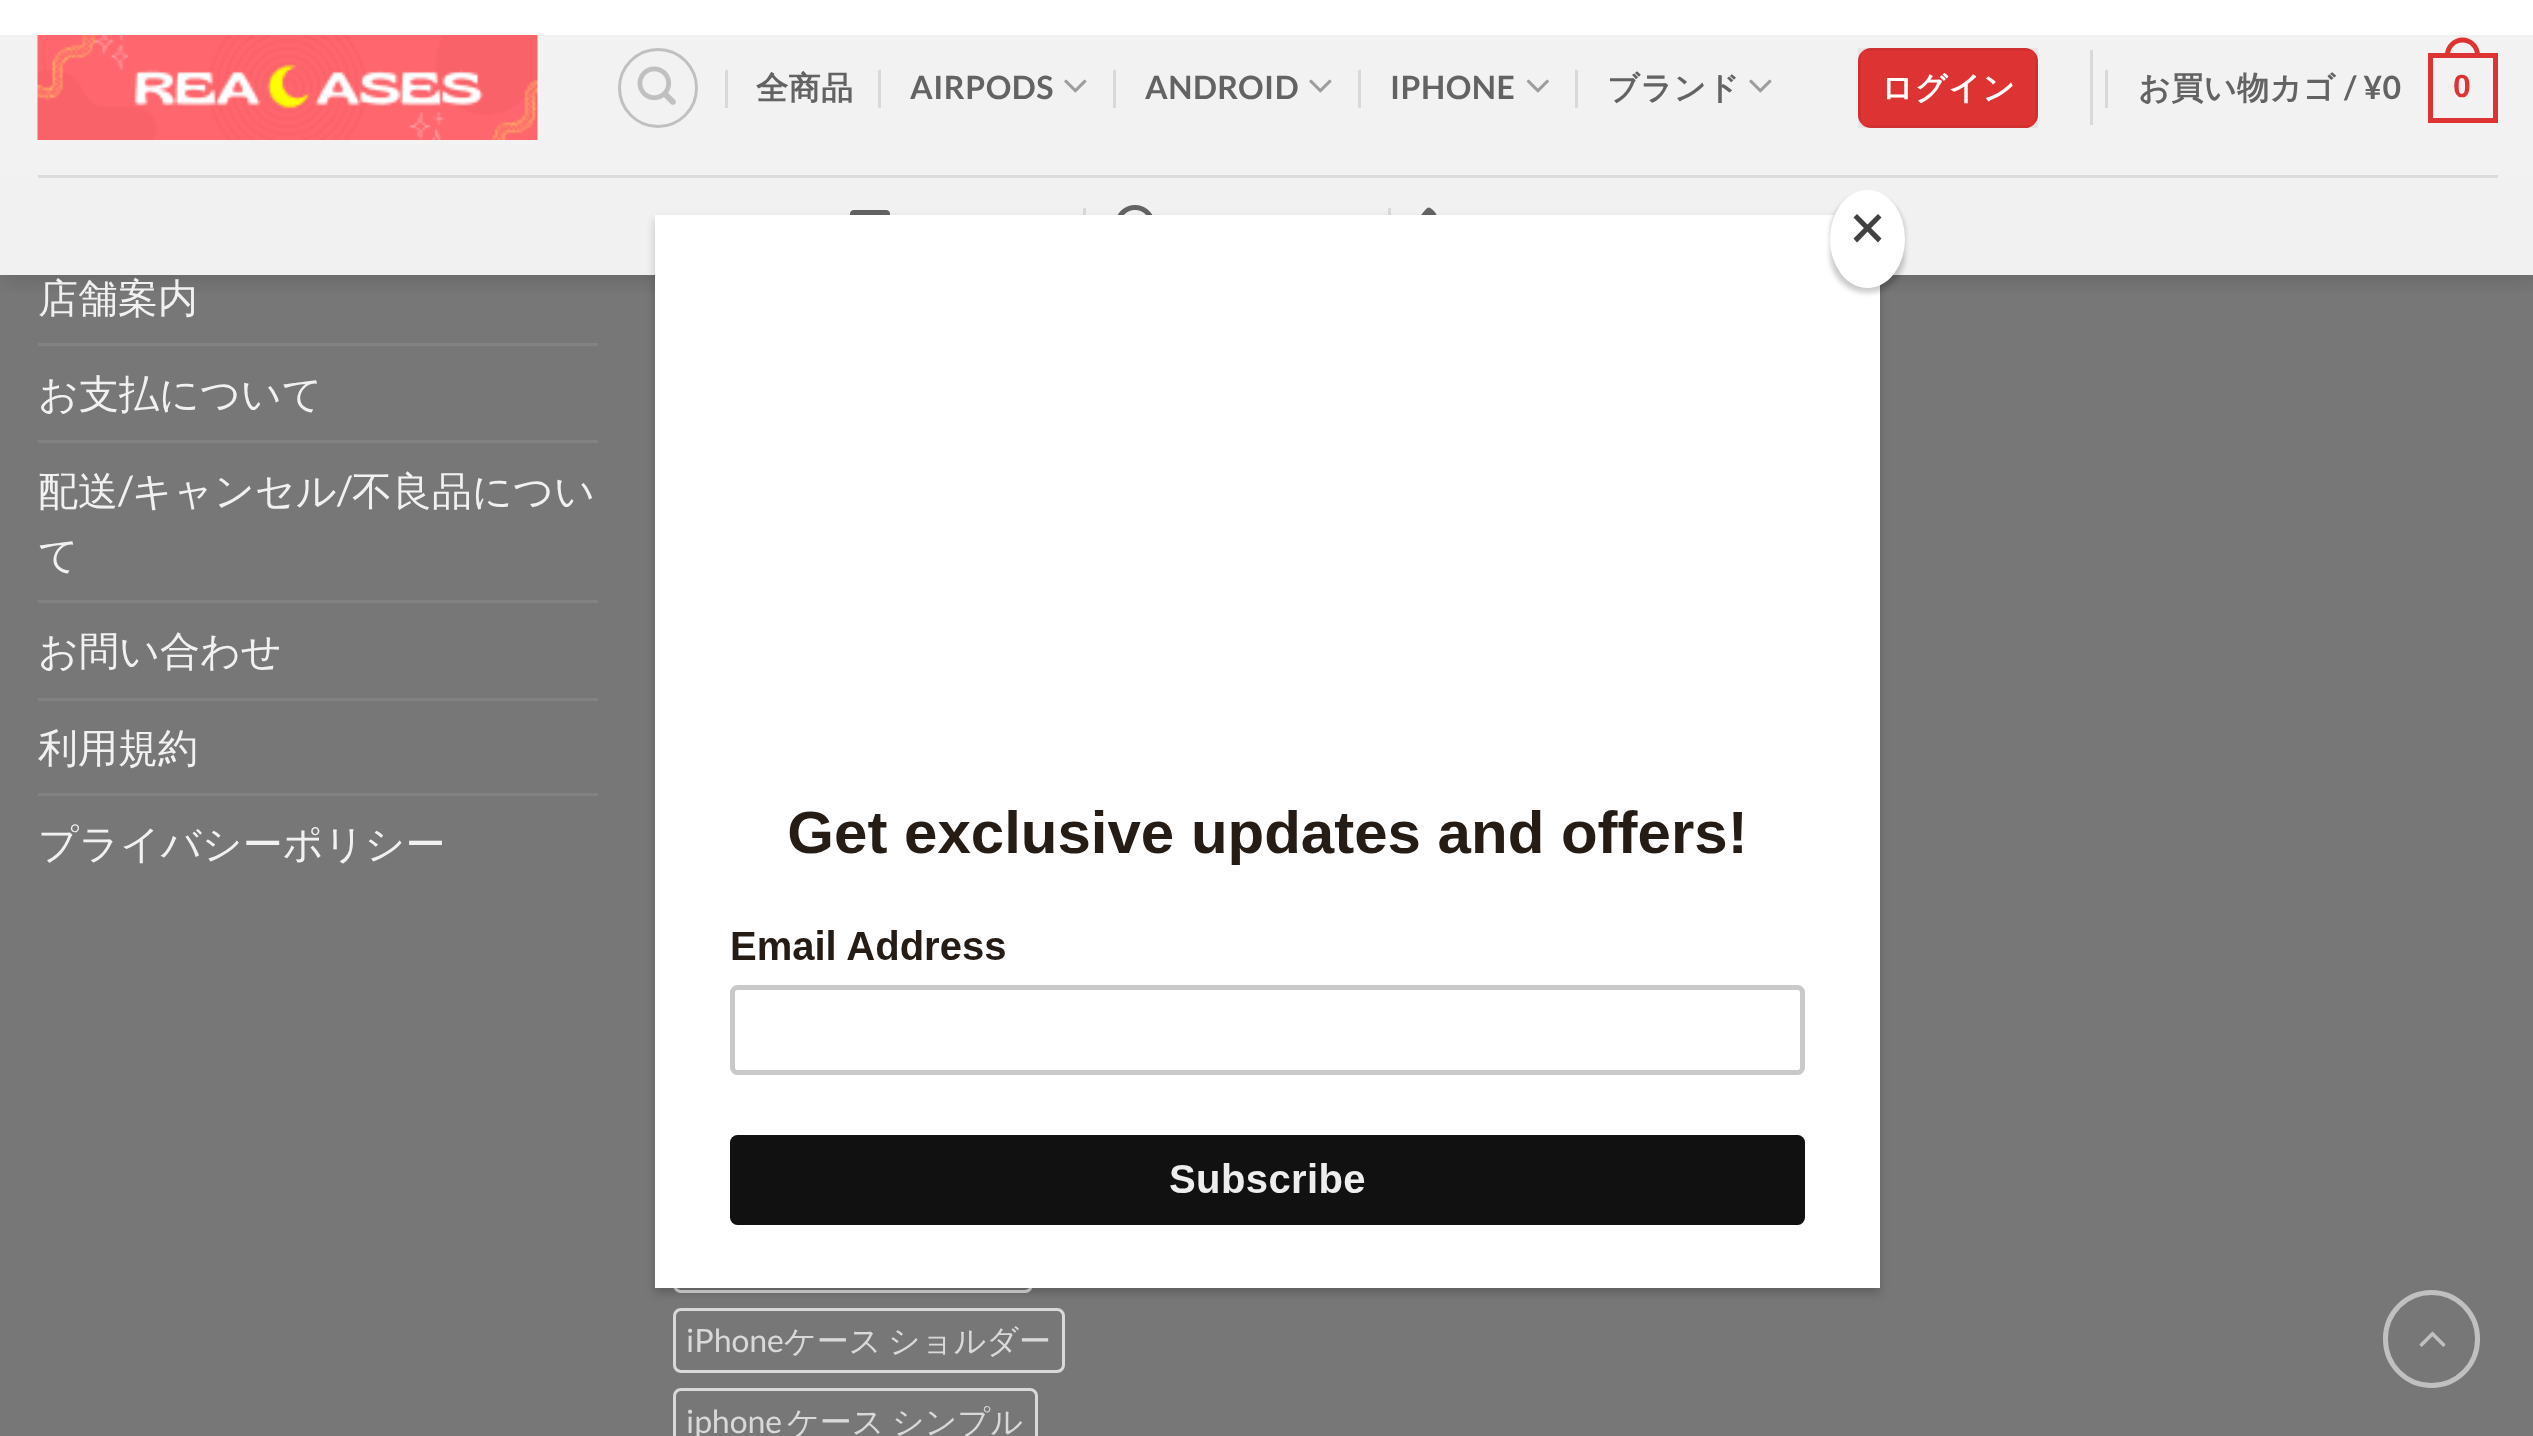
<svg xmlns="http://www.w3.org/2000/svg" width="2533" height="1436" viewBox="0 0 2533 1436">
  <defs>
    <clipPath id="clip1"><path d="M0 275h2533v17H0z"/></clipPath>
  </defs>
  <rect width="100%" height="100%" fill="#fff"/>
  <path d="M0 38h2533v1398H0z" fill="#777"/>
  <path d="M0 35h2533v3H0z" fill="#717171"/>
  <g clip-path="url(#clip1)">
    <path d="M3 3h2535v275H3z" fill="#00000026" filter="blur(12.5px)"/>
  </g>
  <path d="M0 35h2533v140H0z" fill="#ffffffe6"/>
  <image x="37" y="35" width="501" height="105" href="img/1.png"/>
  <circle cx="658" cy="88" r="38.5" fill="none" stroke="#c0c0c0" stroke-width="3"/>
  <image x="637" y="66" width="39" height="39" href="img/2.png"/>
  <path d="M725 70h3v38H725z" fill="#d9d9d9"/>
  <path d="M878 70h3v38H878z" fill="#d9d9d9"/>
  <image x="1064" y="79" width="23" height="14" href="img/3.png"/>
  <path d="M1113 70h3v38H1113z" fill="#d9d9d9"/>
  <image x="1309" y="79" width="23" height="14" href="img/3.png"/>
  <path d="M1358 70h3v38H1358z" fill="#d9d9d9"/>
  <image x="1526" y="79" width="23" height="14" href="img/4.png"/>
  <path d="M1575 70h3v38H1575z" fill="#d9d9d9"/>
  <image x="1749" y="79" width="23" height="14" href="img/3.png"/>
  <rect x="1858" y="48" width="180" height="80" rx="13" fill="#d33"/>
  <path d="M1859.5 49.5h177v77H1859.5z" fill="none" stroke="#0000000d" stroke-width="3"/>
  <path d="M2090 50h3v75H2090z" fill="#d9d9d9"/>
  <path d="M2105 70h3v38H2105z" fill="#d9d9d9"/>
  <path d="M2430.5 55.5h65v65H2430.5z" fill="none" stroke="#d33" stroke-width="5"/>
  <path d="M2462.5 37.5C2472 37.5 2480 45.5 2480 55V57.5H2445V55C2445 45.5 2453 37.5 2462.5 37.5ZM2462.5 42.5C2469.5 42.5 2475 48 2475 55V57.5H2450V55C2450 48 2455.5 42.5 2462.5 42.5Z" fill="#d33" fill-rule="evenodd"/>
  <path d="M0 175h2533v100H0z" fill="#f1f1f1"/>
  <path d="M38 175h2460v3H38z" fill="#dcdbdb"/>
  <image x="850" y="210" width="40" height="5" href="img/5.png"/>
  <path d="M1083 208h3v7H1083z" fill="#d9d9d9"/>
  <image x="1117" y="205" width="36" height="10" href="img/6.png"/>
  <path d="M1388 208h3v7H1388z" fill="#d9d9d9"/>
  <image x="1421" y="207" width="16" height="8" href="img/7.png"/>
  <path d="M38 343h560v3H38z" fill="#828282"/>
  <path d="M38 440h560v3H38z" fill="#828282"/>
  <path d="M38 600h560v3H38z" fill="#828282"/>
  <path d="M38 698h560v3H38z" fill="#828282"/>
  <path d="M38 793h560v3H38z" fill="#828282"/>
  <rect x="674.5" y="1226.5" width="357" height="65" rx="6.5" fill="none" stroke="#d9d9d9" stroke-width="3"/>
  <rect x="674.5" y="1309.5" width="389" height="62" rx="6.5" fill="none" stroke="#d9d9d9" stroke-width="3"/>
  <rect x="674.5" y="1389.5" width="362" height="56" rx="6.5" fill="none" stroke="#d9d9d9" stroke-width="3"/>
  <rect x="2385.5" y="1292.5" width="92" height="93" rx="46" fill="none" stroke="#c0c0c0" stroke-width="5"/>
  <image x="2419" y="1331" width="27" height="16" href="img/8.png"/>
  <path d="M655 220h1225v1073H655z" fill="#00000033" filter="blur(5px)"/>
  <image x="655" y="215" width="1225" height="1073" href="img/9.png"/>
  <rect x="1830" y="195" width="75" height="98" rx="37.5" fill="#00000033" filter="blur(2.5px)"/>
  <ellipse cx="1867.5" cy="239" rx="37.5" ry="49" fill="#fff"/>
  <path d="M1878 214L1881.5 217.5L1857 242.5L1853.5 238.5Z" fill="#414141"/>
  <path d="M1853.5 217.5L1857 214L1881.5 238.5L1878 242.5Z" fill="#414141"/>
  <text x="756" y="99" font-family="WenQuanYi Zen Hei" font-size="32" font-weight="bold" letter-spacing="0.5" fill="#636363">全商品</text>
  <g font-family="Lato" font-size="32" font-weight="bold" letter-spacing="0.5" fill="#636363">
    <text x="910" y="99">AIRPODS</text>
    <text x="1145" y="99">ANDROID</text>
    <text x="1390" y="99">IPHONE</text>
  </g>
  <text x="1607" y="99" font-family="WenQuanYi Zen Hei" font-size="32" font-weight="bold" letter-spacing="0.5" fill="#636363">ブランド</text>
  <text x="1881" y="99" font-family="WenQuanYi Zen Hei" font-size="32" font-weight="bold" letter-spacing="1" fill="#fff">ログイン</text>
  <text x="2138" y="99" font-family="WenQuanYi Zen Hei" font-size="32" font-weight="bold" letter-spacing="0.5" fill="#636363">お買い物カゴ</text>
  <text x="2344" y="99" font-family="Lato" font-size="32" font-weight="bold" letter-spacing="0.5" fill="#636363">/ ¥0</text>
  <text x="2453" y="97" font-family="Liberation Sans" font-size="32" font-weight="bold" letter-spacing="0.5" fill="#d33">0</text>
  <g font-family="WenQuanYi Zen Hei" font-size="40" font-weight="500" fill="#f1f1f1">
    <text x="38" y="312">店舗案内</text>
    <text x="38" y="408">お支払について</text>
    <text x="38" y="505">配送</text>
  </g>
  <text x="118" y="505" font-family="Lato" font-size="40" fill="#f1f1f1">/</text>
  <text x="132" y="505" font-family="WenQuanYi Zen Hei" font-size="40" font-weight="500" fill="#f1f1f1">キャンセル</text>
  <text x="337" y="505" font-family="Lato" font-size="40" fill="#f1f1f1">/</text>
  <g font-family="WenQuanYi Zen Hei" font-size="40" font-weight="500" fill="#f1f1f1">
    <text x="352" y="505">不良品につい</text>
    <text x="38" y="569">て</text>
    <text x="38" y="665">お問い合わせ</text>
    <text x="38" y="762">利用規約</text>
    <text x="38" y="858">プライバシーポリシー</text>
  </g>
  <text x="686" y="1352" font-family="Lato" font-size="32" fill="#d9d9d9">iPhone</text>
  <text x="784" y="1352" word-spacing="-3" font-family="WenQuanYi Zen Hei" font-size="32" font-weight="500" fill="#d9d9d9">ケース ショルダー</text>
  <text x="686" y="1433" font-family="Lato" font-size="32" fill="#d9d9d9">iphone</text>
  <text x="787" y="1433" word-spacing="-2" font-family="WenQuanYi Zen Hei" font-size="32" font-weight="500" fill="#d9d9d9">ケース シンプル</text>
</svg>
